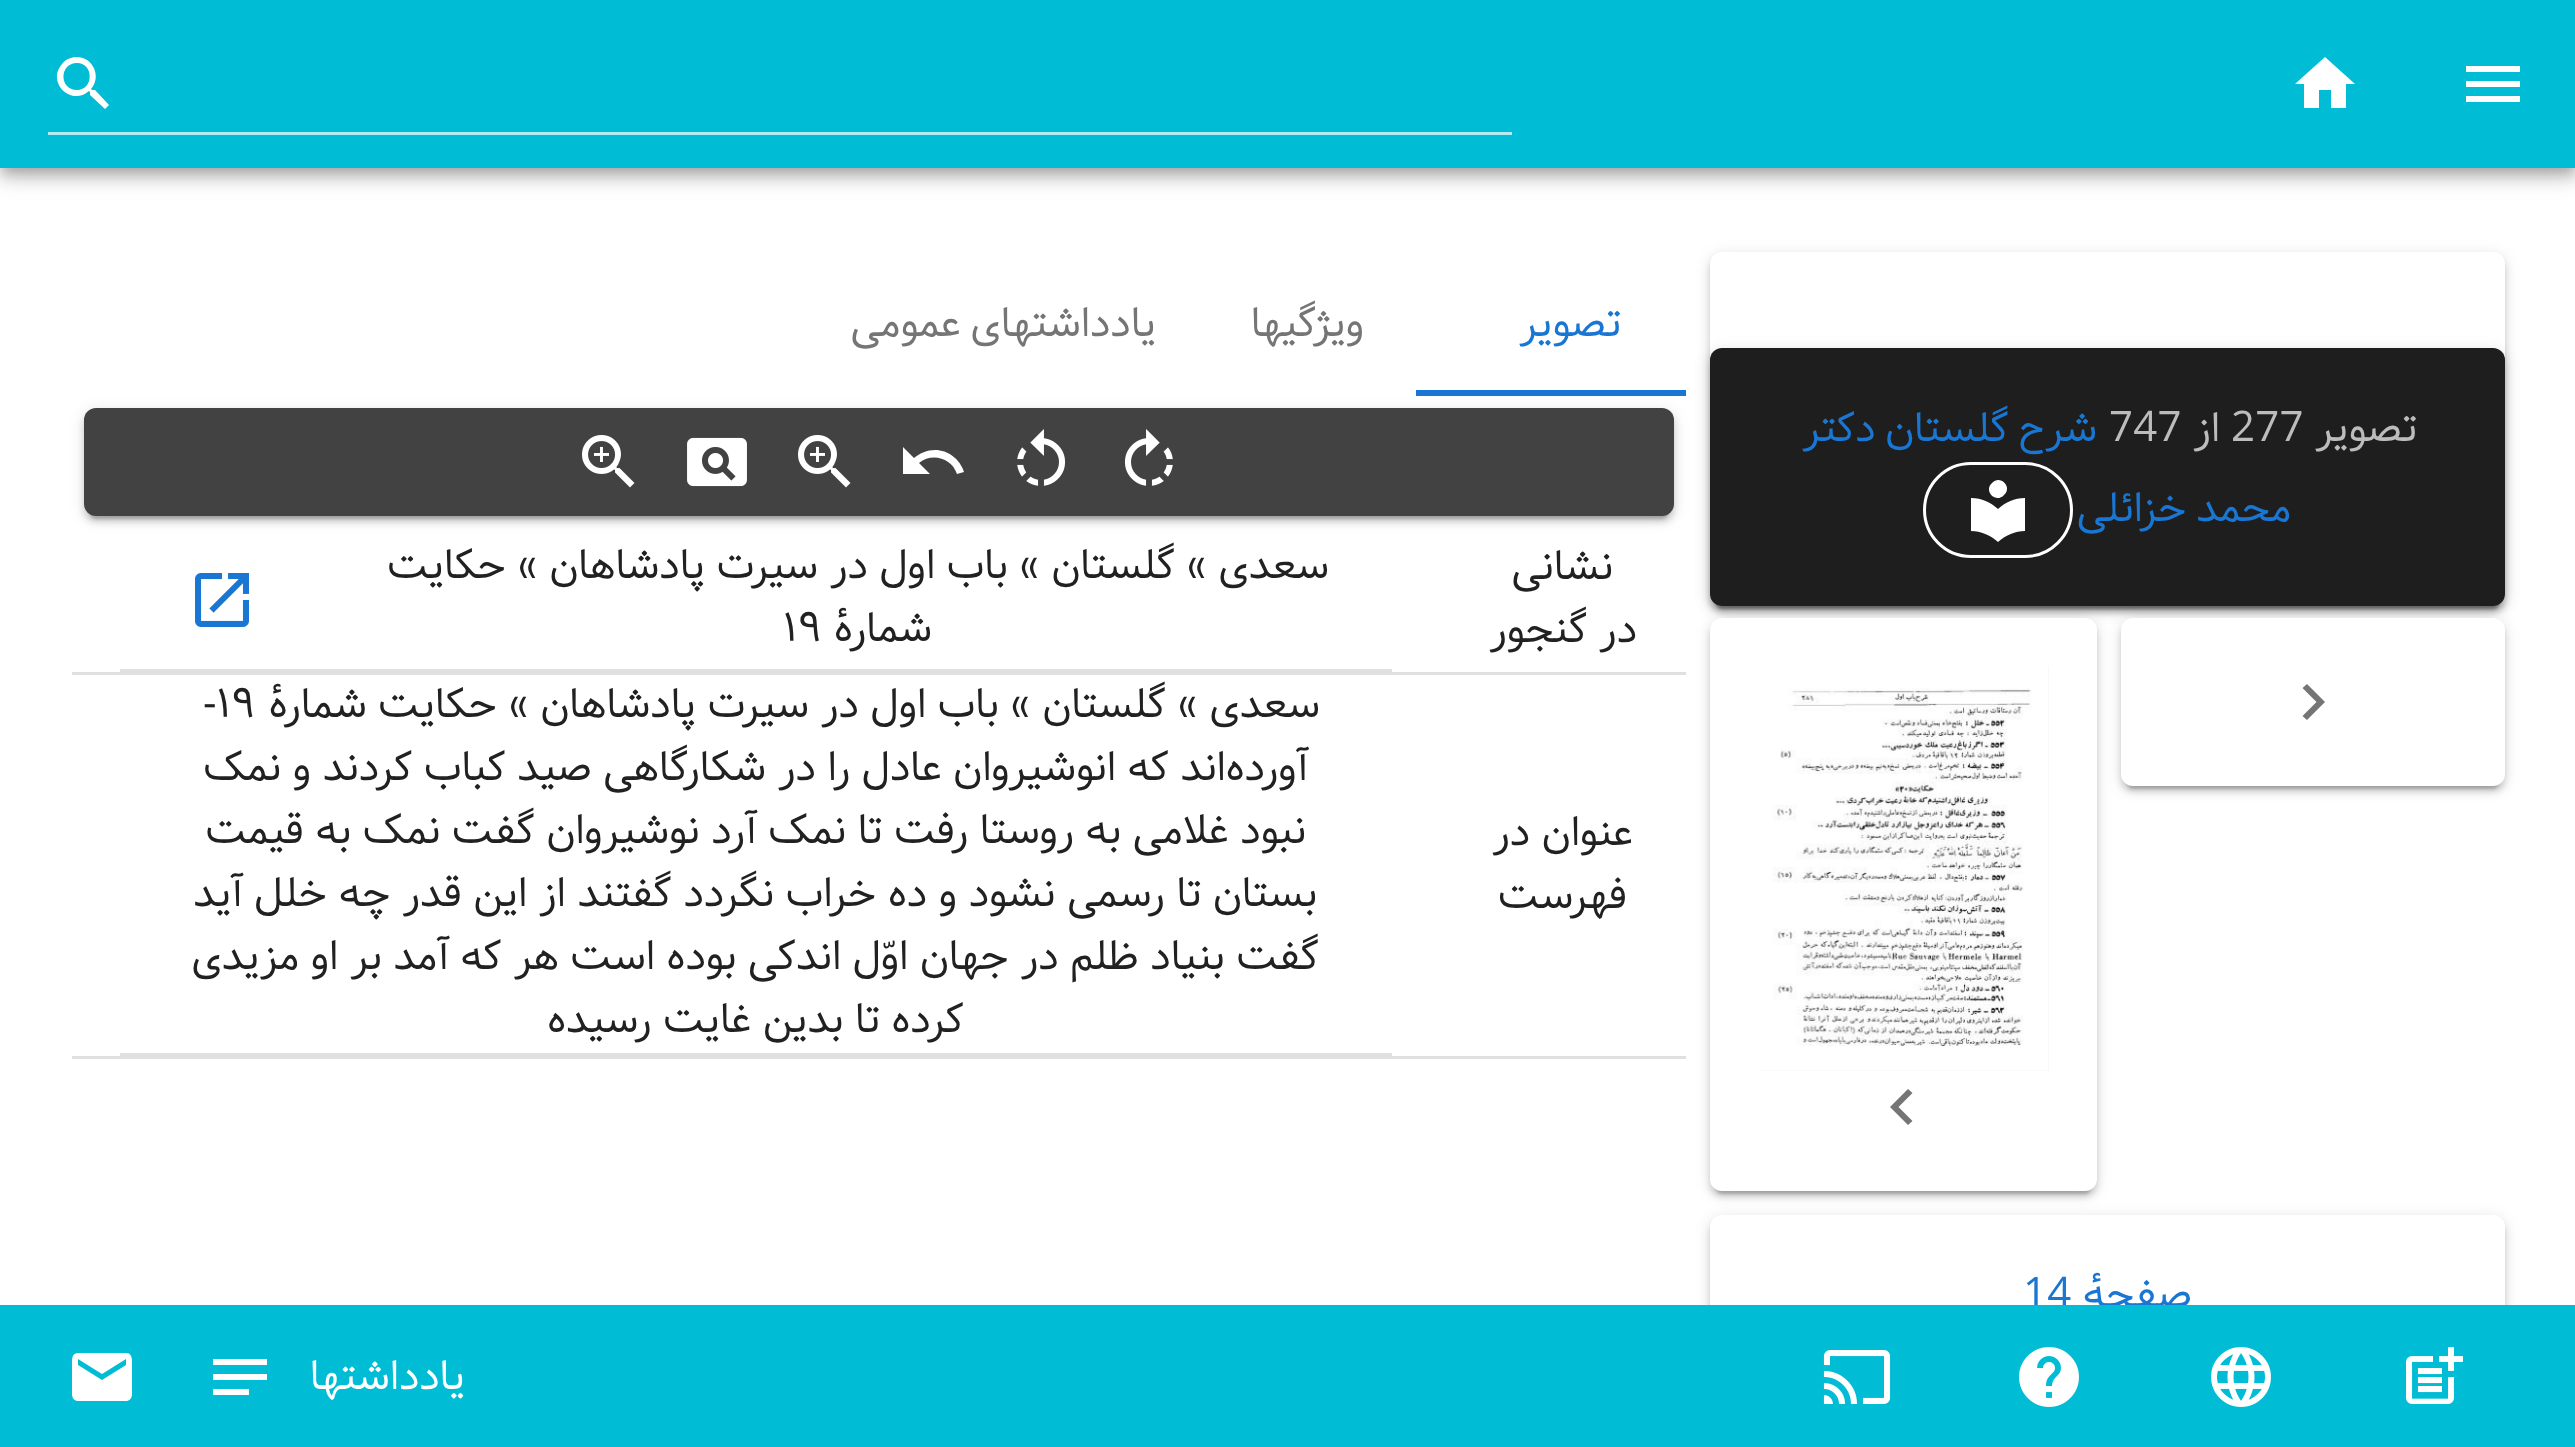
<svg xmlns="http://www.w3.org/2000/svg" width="2575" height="1447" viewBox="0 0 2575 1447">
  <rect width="100%" height="100%" fill="#fff"/>
  <path d="M0 3h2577v168H0z" fill="#0000001f" filter="blur(15px)"/>
  <path d="M0 12h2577v168H0z" fill="#00000024" filter="blur(7.5px)"/>
  <path d="M3 9h2571v162H3z" fill="#00000033" filter="blur(6px)"/>
  <path d="M0 0h2575v168H0z" fill="#00bcd4"/>
  <path d="M2466 66H2520V72H2466ZM2466 81H2520V87H2466ZM2466 96H2520V102H2466Z" fill="#fff"/>
  <path d="M2319 108V90H2331V108H2346V84H2355L2325 57L2295 84H2304V108Z" fill="#fff"/>
  <path d="M77 57C93 57 102 77 91 89L92 90H95L109 105L105 109L90 95V92L89 91C71 107 46 82 62 64C66 59 71 57 77 57ZM77 63C59 63 59 90 77 90C94 90 94 63 77 63Z" fill="#fff"/>
  <path d="M48 132h1464v3H48z" fill="#b3ebf2"/>
  <rect x="1710" y="255" width="795" height="354" rx="12" fill="#0000001f" filter="blur(7.5px)"/>
  <rect x="1710" y="258" width="795" height="354" rx="12" fill="#00000024" filter="blur(3px)"/>
  <rect x="1716" y="267" width="783" height="342" rx="6" fill="#00000033" filter="blur(1.5px)"/>
  <rect x="1710" y="252" width="795" height="354" rx="12" fill="#fff"/>
  <rect x="1710" y="351" width="795" height="258" rx="12" fill="#0000001f" filter="blur(7.5px)"/>
  <rect x="1710" y="354" width="795" height="258" rx="12" fill="#00000024" filter="blur(3px)"/>
  <rect x="1716" y="363" width="783" height="246" rx="6" fill="#00000033" filter="blur(1.5px)"/>
  <rect x="1710" y="348" width="795" height="258" rx="12" fill="#1e1e1e"/>
  <rect x="1924.5" y="463.5" width="147" height="93" rx="46.5" fill="none" stroke="#fff" stroke-width="3"/>
  <path d="M2004 495C1996 504 1983 491 1992 483C2000 474 2013 487 2004 495ZM1998 509C2006 502 2014 498 2025 498V531C2015 531 2006 535 1998 542C1990 535 1981 531 1971 531V498C1982 498 1990 502 1998 509Z" fill="#fff"/>
  <rect x="2121" y="621" width="384" height="168" rx="12" fill="#0000001f" filter="blur(7.5px)"/>
  <rect x="2121" y="624" width="384" height="168" rx="12" fill="#00000024" filter="blur(3px)"/>
  <rect x="2127" y="633" width="372" height="156" rx="6" fill="#00000033" filter="blur(1.5px)"/>
  <rect x="2121" y="618" width="384" height="168" rx="12" fill="#fff"/>
  <path d="M2302.5 716L2316.5 702L2302.5 688L2307 684L2325 702L2307 720Z" fill="#757575"/>
  <rect x="1710" y="621" width="387" height="573" rx="12" fill="#0000001f" filter="blur(7.5px)"/>
  <rect x="1710" y="624" width="387" height="573" rx="12" fill="#00000024" filter="blur(3px)"/>
  <rect x="1716" y="633" width="375" height="561" rx="6" fill="#00000033" filter="blur(1.5px)"/>
  <rect x="1710" y="618" width="387" height="573" rx="12" fill="#fff"/>
  <path d="M1758 666h291v405H1758z" fill="#e0e0e0"/>
  <image x="1758" y="666" width="291" height="405" href="img/1.png"/>
  <path d="M1912.5 1121L1898.5 1107L1912.5 1093L1908 1089L1890 1107L1908 1125Z" fill="#757575"/>
  <rect x="1710" y="1218" width="795" height="162" rx="12" fill="#0000001f" filter="blur(7.5px)"/>
  <rect x="1710" y="1221" width="795" height="162" rx="12" fill="#00000024" filter="blur(3px)"/>
  <rect x="1710" y="1215" width="795" height="162" rx="12" fill="#fff"/>
  <path d="M1416 390h270v6H1416z" fill="#1976d2"/>
  <rect x="84" y="411" width="1590" height="108" rx="12" fill="#0000001f" filter="blur(7.5px)"/>
  <rect x="84" y="414" width="1590" height="108" rx="12" fill="#00000024" filter="blur(3px)"/>
  <rect x="90" y="423" width="1578" height="96" rx="6" fill="#00000033" filter="blur(1.5px)"/>
  <rect x="84" y="408" width="1590" height="108" rx="12" fill="#424242"/>
  <image x="1124" y="429" width="49" height="57" href="img/2.png"/>
  <image x="1017" y="429" width="49" height="57" href="img/3.png"/>
  <path d="M935 450C948 450 960 459 964 472L957 474C952 458 932 452 919 463L930 474H903V447L914 458C920 453 927 450 935 450Z" fill="#fff"/>
  <image x="798" y="435" width="53" height="53" href="img/4.png"/>
  <image x="687" y="437" width="60" height="50" href="img/5.png"/>
  <image x="582" y="435" width="53" height="53" href="img/4.png"/>
  <path d="M72 672h1614v3H72z" fill="#e0e0e0"/>
  <path d="M120 669h1272v3H120z" fill="#e0e0e0"/>
  <image x="195" y="573" width="54" height="54" href="img/6.png"/>
  <path d="M72 1056h1614v3H72z" fill="#e0e0e0"/>
  <path d="M120 1053h1272v3H120z" fill="#e0e0e0"/>
  <text x="2417" y="441" font-family="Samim" font-size="42" letter-spacing="0.25" direction="rtl" fill="#bcbcbc">تصویر</text>
  <text x="2231" y="441" font-family="Samim" font-size="42" letter-spacing="0.25" fill="#bcbcbc">277</text>
  <text x="2220" y="441" font-family="Samim" font-size="42" letter-spacing="0.25" direction="rtl" fill="#bcbcbc">از</text>
  <text x="2109" y="441" font-family="Samim" font-size="42" letter-spacing="0.25" fill="#bcbcbc">747</text>
  <g font-family="Samim" font-size="42" letter-spacing="0.25" direction="rtl" fill="#1976d2">
    <text x="2097" y="441" word-spacing="-2">شرح گلستان دکتر</text>
    <text x="2291" y="521" word-spacing="-2">محمد خزائلی</text>
    <text x="2192" y="1307">صفحهٔ</text>
  </g>
  <text x="2023" y="1307" font-family="Samim" font-size="42" letter-spacing="0.25" fill="#1976d2">14</text>
  <text x="1621" y="336" font-family="Samim" font-size="42" letter-spacing="3.75" direction="rtl" fill="#1976d2">تصویر</text>
  <g font-family="Samim" font-size="42" letter-spacing="3.75" direction="rtl" fill="#757575">
    <text x="1364" y="336">ویژگیها</text>
    <text x="1156" y="336" word-spacing="-2">یادداشتهای عمومی</text>
  </g>
  <g font-family="Samim" font-size="42" direction="rtl" fill="#212121">
    <text x="1613" y="579">نشانی</text>
    <text x="1637" y="642">در گنجور</text>
    <text x="1329" y="578">سعدی » گلستان » باب اول در سیرت پادشاهان » حکایت</text>
    <text x="932" y="641">شمارهٔ</text>
  </g>
  <text x="783" y="641" font-family="Samim" font-size="42" fill="#212121">۱۹</text>
  <g font-family="Samim" font-size="42" direction="rtl" fill="#212121">
    <text x="1633" y="845">عنوان در</text>
    <text x="1627" y="908">فهرست</text>
    <text x="1320" y="717">سعدی » گلستان » باب اول در سیرت پادشاهان » حکایت شمارهٔ</text>
  </g>
  <text x="203" y="717" font-family="Samim" font-size="42" fill="#212121">-۱۹</text>
  <g font-family="Samim" font-size="42" direction="rtl" fill="#212121">
    <text x="1308" y="780">آورده‌اند که انوشیروان عادل را در شکارگاهی صید کباب کردند و نمک</text>
    <text x="1306" y="843">نبود غلامی به روستا رفت تا نمک آرد نوشیروان گفت نمک به قیمت</text>
    <text x="1317" y="906">بستان تا رسمی نشود و ده خراب نگردد گفتند از این قدر چه خلل آید</text>
    <text x="1319" y="969">گفت بنیاد ظلم در جهان اوّل اندکی بوده است هر که آمد بر او مزیدی</text>
    <text x="964" y="1032">کرده تا بدین غایت رسیده</text>
  </g>
  <path d="M0 1305h2575v142H0z" fill="#00bcd4"/>
  <image x="2406" y="1347" width="57" height="57" href="img/7.png"/>
  <image x="2211" y="1347" width="60" height="60" href="img/8.png"/>
  <image x="2019" y="1347" width="60" height="60" href="img/9.png"/>
  <image x="1823" y="1350" width="68" height="54" href="img/10.png"/>
  <text x="465" y="1389" font-family="Samim" font-size="42" letter-spacing="3.75" direction="rtl" fill="#fff">یادداشتها</text>
  <path d="M213 1380V1374H267V1380ZM213 1359H267V1365H213ZM213 1395V1389H249V1395Z" fill="#fff"/>
  <path d="M126 1365V1359L102 1374L78 1359V1365L102 1380ZM126 1353C133 1353 132 1361 132 1365V1389C132 1393 133 1400 127 1401H77C71 1400 72 1393 72 1389V1365C72 1361 71 1354 77 1353Z" fill="#fff"/>
</svg>
